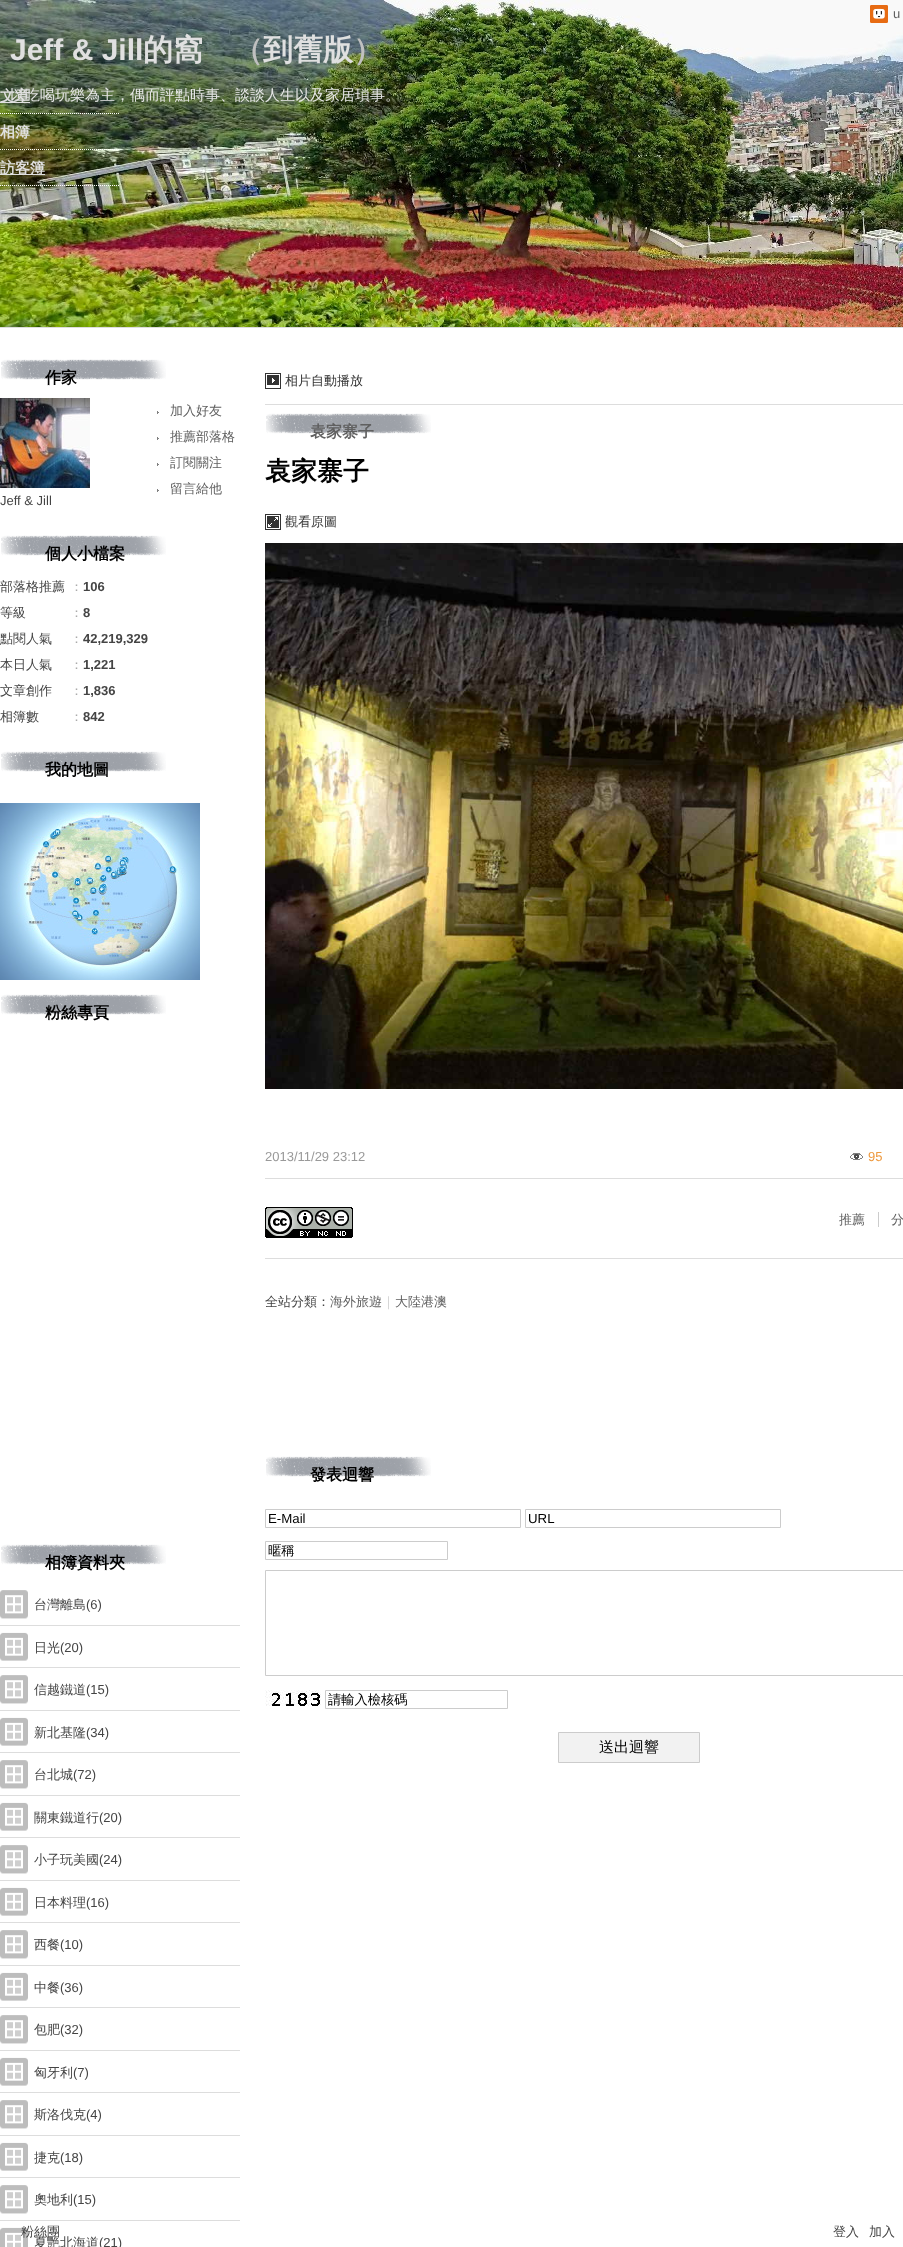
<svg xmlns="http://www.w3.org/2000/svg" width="903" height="2247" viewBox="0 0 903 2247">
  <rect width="100%" height="100%" fill="#fff"/>
  <image x="0" y="0" width="903" height="327" href="img/2.png"/>
  <image x="870" y="5" width="18" height="18" href="img/1.png"/>
  <path d="M0 327h903v1H0z" fill="#ddd"/>
  <path d="M0 113.5H120" fill="none" stroke="#fff" stroke-dasharray="1 1"/>
  <path d="M0 149.5H120" fill="none" stroke="#fff" stroke-dasharray="1 1"/>
  <path d="M0 185.5H120" fill="none" stroke="#fff" stroke-dasharray="1 1"/>
  <path d="M0 174h45v1H0z" fill="#e0e0e0"/>
  <image x="1" y="359" width="165" height="21" href="img/3.png"/>
  <image x="157" y="411" width="2" height="3" href="img/4.png"/>
  <image x="157" y="437" width="2" height="3" href="img/4.png"/>
  <image x="157" y="463" width="2" height="3" href="img/4.png"/>
  <image x="157" y="489" width="2" height="3" href="img/4.png"/>
  <image x="0" y="398" width="90" height="90" href="img/5.png"/>
  <image x="1" y="535" width="165" height="21" href="img/3.png"/>
  <image x="1" y="751" width="165" height="21" href="img/3.png"/>
  <image x="0" y="803" width="200" height="177" href="img/6.png"/>
  <image x="1" y="994" width="165" height="21" href="img/3.png"/>
  <image x="1" y="1544" width="165" height="21" href="img/3.png"/>
  <image x="0" y="1590" width="28" height="29" href="img/7.png"/>
  <path d="M0 1625h240v1H0z" fill="#ddd"/>
  <image x="0" y="1632" width="28" height="29" href="img/8.png"/>
  <path d="M0 1667h240v1H0z" fill="#ddd"/>
  <image x="0" y="1675" width="28" height="29" href="img/7.png"/>
  <path d="M0 1710h240v1H0z" fill="#ddd"/>
  <image x="0" y="1717" width="28" height="29" href="img/8.png"/>
  <path d="M0 1752h240v1H0z" fill="#ddd"/>
  <image x="0" y="1760" width="28" height="29" href="img/7.png"/>
  <path d="M0 1795h240v1H0z" fill="#ddd"/>
  <image x="0" y="1802" width="28" height="29" href="img/9.png"/>
  <path d="M0 1837h240v1H0z" fill="#ddd"/>
  <image x="0" y="1845" width="28" height="29" href="img/7.png"/>
  <path d="M0 1880h240v1H0z" fill="#ddd"/>
  <image x="0" y="1887" width="28" height="29" href="img/9.png"/>
  <path d="M0 1922h240v1H0z" fill="#ddd"/>
  <image x="0" y="1930" width="28" height="29" href="img/7.png"/>
  <path d="M0 1965h240v1H0z" fill="#ddd"/>
  <image x="0" y="1972" width="28" height="29" href="img/8.png"/>
  <path d="M0 2007h240v1H0z" fill="#ddd"/>
  <image x="0" y="2015" width="28" height="29" href="img/7.png"/>
  <path d="M0 2050h240v1H0z" fill="#ddd"/>
  <image x="0" y="2057" width="28" height="29" href="img/8.png"/>
  <path d="M0 2092h240v1H0z" fill="#ddd"/>
  <image x="0" y="2100" width="28" height="29" href="img/7.png"/>
  <path d="M0 2135h240v1H0z" fill="#ddd"/>
  <image x="0" y="2142" width="28" height="29" href="img/9.png"/>
  <path d="M0 2177h240v1H0z" fill="#ddd"/>
  <image x="0" y="2185" width="28" height="29" href="img/7.png"/>
  <path d="M0 2220h240v1H0z" fill="#ddd"/>
  <image x="0" y="2227" width="28" height="20" href="img/10.png"/>
  <path d="M265 404h638v1H265z" fill="#ddd"/>
  <image x="265" y="373" width="16" height="16" href="img/11.png"/>
  <image x="266" y="413" width="165" height="21" href="img/3.png"/>
  <image x="265" y="514" width="16" height="16" href="img/12.png"/>
  <image x="265" y="543" width="638" height="546" href="img/13.png"/>
  <image x="850" y="1153" width="13" height="7" href="img/14.png"/>
  <path d="M265 1178h638v1H265z" fill="#ddd"/>
  <image x="265" y="1207" width="88" height="31" href="img/15.png"/>
  <path d="M878 1212h1v15H878z" fill="#ccc"/>
  <path d="M265 1258h638v1H265z" fill="#ddd"/>
  <image x="266" y="1456" width="165" height="21" href="img/3.png"/>
  <path d="M265.5 1509.5h255v18H265.5z" fill="none" stroke="#ccc"/>
  <path d="M525.5 1509.5h255v18H525.5z" fill="none" stroke="#ccc"/>
  <path d="M265.5 1541.5h182v18H265.5z" fill="none" stroke="#ccc"/>
  <path d="M265.5 1570.5h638v105H265.5z" fill="none" stroke="#ccc"/>
  <image x="265" y="1690" width="56" height="16" href="img/16.png"/>
  <path d="M325.5 1690.5h182v18H325.5z" fill="none" stroke="#ccc"/>
  <path d="M558.5 1732.5h141v30H558.5z" fill="#f2f2f2" stroke="#ccc"/>
  <text x="893" y="18" font-family="Liberation Sans" font-size="13" fill="#606060">u</text>
  <text x="10" y="60" font-family="Liberation Sans" font-size="30" font-weight="bold" fill="#e0e0e0">Jeff &amp; Jill</text>
  <text x="143" y="60" font-family="WenQuanYi Zen Hei" font-size="30" font-weight="bold" fill="#e0e0e0">的窩</text>
  <text x="233" y="60" font-family="WenQuanYi Zen Hei" font-size="30" font-weight="bold" fill="#c0c0c0">（</text>
  <text x="263" y="60" font-family="WenQuanYi Zen Hei" font-size="30" font-weight="bold" fill="#e0e0e0">到舊版</text>
  <text x="353" y="60" font-family="WenQuanYi Zen Hei" font-size="30" font-weight="bold" fill="#c0c0c0">）</text>
  <text x="10" y="100" font-family="WenQuanYi Zen Hei" font-size="15" font-weight="500" fill="#e6e6e6">以吃喝玩樂為主，偶而評點時事、談談人生以及家居瑣事。</text>
  <path d="M0 102h30v1H0z" fill="#e0e0e0"/>
  <g font-family="WenQuanYi Zen Hei" font-size="15" font-weight="bold" fill="#e0e0e0">
    <text x="0" y="101">文章</text>
    <text x="0" y="137">相簿</text>
    <text x="0" y="173">訪客簿</text>
  </g>
  <text x="45" y="383" font-family="WenQuanYi Zen Hei" font-size="16" font-weight="bold" fill="#000">作家</text>
  <g font-family="WenQuanYi Zen Hei" font-size="13" font-weight="500" fill="#606060">
    <text x="170" y="415">加入好友</text>
    <text x="170" y="441">推薦部落格</text>
    <text x="170" y="467">訂閱關注</text>
    <text x="170" y="493">留言給他</text>
  </g>
  <text x="0" y="505" font-family="Liberation Sans" font-size="13" fill="#444">Jeff &amp; Jill</text>
  <text x="45" y="559" font-family="WenQuanYi Zen Hei" font-size="16" font-weight="bold" fill="#000">個人小檔案</text>
  <text x="0" y="591" font-family="WenQuanYi Zen Hei" font-size="13" font-weight="500" fill="#444">部落格推薦</text>
  <text x="70" y="591" font-family="WenQuanYi Zen Hei" font-size="13" font-weight="500" fill="#aaa">：</text>
  <text x="83" y="591" font-family="Liberation Sans" font-size="13" font-weight="bold" fill="#444">106</text>
  <text x="0" y="617" font-family="WenQuanYi Zen Hei" font-size="13" font-weight="500" fill="#444">等級</text>
  <text x="70" y="617" font-family="WenQuanYi Zen Hei" font-size="13" font-weight="500" fill="#aaa">：</text>
  <text x="83" y="617" font-family="Liberation Sans" font-size="13" font-weight="bold" fill="#444">8</text>
  <text x="0" y="643" font-family="WenQuanYi Zen Hei" font-size="13" font-weight="500" fill="#444">點閱人氣</text>
  <text x="70" y="643" font-family="WenQuanYi Zen Hei" font-size="13" font-weight="500" fill="#aaa">：</text>
  <text x="83" y="643" font-family="Liberation Sans" font-size="13" font-weight="bold" fill="#444">42,219,329</text>
  <text x="0" y="669" font-family="WenQuanYi Zen Hei" font-size="13" font-weight="500" fill="#444">本日人氣</text>
  <text x="70" y="669" font-family="WenQuanYi Zen Hei" font-size="13" font-weight="500" fill="#aaa">：</text>
  <text x="83" y="669" font-family="Liberation Sans" font-size="13" font-weight="bold" fill="#444">1,221</text>
  <text x="0" y="695" font-family="WenQuanYi Zen Hei" font-size="13" font-weight="500" fill="#444">文章創作</text>
  <text x="70" y="695" font-family="WenQuanYi Zen Hei" font-size="13" font-weight="500" fill="#aaa">：</text>
  <text x="83" y="695" font-family="Liberation Sans" font-size="13" font-weight="bold" fill="#444">1,836</text>
  <text x="0" y="721" font-family="WenQuanYi Zen Hei" font-size="13" font-weight="500" fill="#444">相簿數</text>
  <text x="70" y="721" font-family="WenQuanYi Zen Hei" font-size="13" font-weight="500" fill="#aaa">：</text>
  <text x="83" y="721" font-family="Liberation Sans" font-size="13" font-weight="bold" fill="#444">842</text>
  <g font-family="WenQuanYi Zen Hei" font-size="16" font-weight="bold" fill="#000">
    <text x="45" y="775">我的地圖</text>
    <text x="45" y="1018">粉絲專頁</text>
    <text x="45" y="1568">相簿資料夾</text>
  </g>
  <text x="34" y="1609" font-family="WenQuanYi Zen Hei" font-size="13" font-weight="500" fill="#444">台灣離島</text>
  <text x="86" y="1609" font-family="Liberation Sans" font-size="13" fill="#444">(6)</text>
  <text x="34" y="1652" font-family="WenQuanYi Zen Hei" font-size="13" font-weight="500" fill="#444">日光</text>
  <text x="60" y="1652" font-family="Liberation Sans" font-size="13" fill="#444">(20)</text>
  <text x="34" y="1694" font-family="WenQuanYi Zen Hei" font-size="13" font-weight="500" fill="#444">信越鐵道</text>
  <text x="86" y="1694" font-family="Liberation Sans" font-size="13" fill="#444">(15)</text>
  <text x="34" y="1737" font-family="WenQuanYi Zen Hei" font-size="13" font-weight="500" fill="#444">新北基隆</text>
  <text x="86" y="1737" font-family="Liberation Sans" font-size="13" fill="#444">(34)</text>
  <text x="34" y="1779" font-family="WenQuanYi Zen Hei" font-size="13" font-weight="500" fill="#444">台北城</text>
  <text x="73" y="1779" font-family="Liberation Sans" font-size="13" fill="#444">(72)</text>
  <text x="34" y="1822" font-family="WenQuanYi Zen Hei" font-size="13" font-weight="500" fill="#444">關東鐵道行</text>
  <text x="99" y="1822" font-family="Liberation Sans" font-size="13" fill="#444">(20)</text>
  <text x="34" y="1864" font-family="WenQuanYi Zen Hei" font-size="13" font-weight="500" fill="#444">小子玩美國</text>
  <text x="99" y="1864" font-family="Liberation Sans" font-size="13" fill="#444">(24)</text>
  <text x="34" y="1907" font-family="WenQuanYi Zen Hei" font-size="13" font-weight="500" fill="#444">日本料理</text>
  <text x="86" y="1907" font-family="Liberation Sans" font-size="13" fill="#444">(16)</text>
  <text x="34" y="1949" font-family="WenQuanYi Zen Hei" font-size="13" font-weight="500" fill="#444">西餐</text>
  <text x="60" y="1949" font-family="Liberation Sans" font-size="13" fill="#444">(10)</text>
  <text x="34" y="1992" font-family="WenQuanYi Zen Hei" font-size="13" font-weight="500" fill="#444">中餐</text>
  <text x="60" y="1992" font-family="Liberation Sans" font-size="13" fill="#444">(36)</text>
  <text x="34" y="2034" font-family="WenQuanYi Zen Hei" font-size="13" font-weight="500" fill="#444">包肥</text>
  <text x="60" y="2034" font-family="Liberation Sans" font-size="13" fill="#444">(32)</text>
  <text x="34" y="2077" font-family="WenQuanYi Zen Hei" font-size="13" font-weight="500" fill="#444">匈牙利</text>
  <text x="73" y="2077" font-family="Liberation Sans" font-size="13" fill="#444">(7)</text>
  <text x="34" y="2119" font-family="WenQuanYi Zen Hei" font-size="13" font-weight="500" fill="#444">斯洛伐克</text>
  <text x="86" y="2119" font-family="Liberation Sans" font-size="13" fill="#444">(4)</text>
  <text x="34" y="2162" font-family="WenQuanYi Zen Hei" font-size="13" font-weight="500" fill="#444">捷克</text>
  <text x="60" y="2162" font-family="Liberation Sans" font-size="13" fill="#444">(18)</text>
  <text x="34" y="2204" font-family="WenQuanYi Zen Hei" font-size="13" font-weight="500" fill="#444">奧地利</text>
  <text x="73" y="2204" font-family="Liberation Sans" font-size="13" fill="#444">(15)</text>
  <text x="34" y="2247" font-family="WenQuanYi Zen Hei" font-size="13" font-weight="500" fill="#444">夏艷北海道</text>
  <text x="99" y="2247" font-family="Liberation Sans" font-size="13" fill="#444">(21)</text>
  <text x="285" y="385" font-family="WenQuanYi Zen Hei" font-size="13" font-weight="500" fill="#333">相片自動播放</text>
  <text x="310" y="437" font-family="WenQuanYi Zen Hei" font-size="16" font-weight="bold" fill="#606060">袁家寨子</text>
  <text x="265" y="480" font-family="WenQuanYi Zen Hei" font-size="26" font-weight="bold" fill="#000">袁家寨子</text>
  <text x="285" y="526" font-family="WenQuanYi Zen Hei" font-size="13" font-weight="500" fill="#333">觀看原圖</text>
  <text x="265" y="1161" font-family="Liberation Sans" font-size="13" fill="#999">2013/11/29 23:12</text>
  <text x="868" y="1161" font-family="Liberation Sans" font-size="13" fill="#ee993e">95</text>
  <g font-family="WenQuanYi Zen Hei" font-size="13" font-weight="500" fill="#606060">
    <text x="839" y="1224">推薦</text>
    <text x="891" y="1224">分</text>
  </g>
  <text x="265" y="1306" font-family="WenQuanYi Zen Hei" font-size="13" font-weight="500" fill="#444">全站分類：</text>
  <text x="330" y="1306" font-family="WenQuanYi Zen Hei" font-size="13" font-weight="500" fill="#606060">海外旅遊</text>
  <text x="382" y="1306" font-family="WenQuanYi Zen Hei" font-size="13" font-weight="500" fill="#ccc">｜</text>
  <text x="395" y="1306" font-family="WenQuanYi Zen Hei" font-size="13" font-weight="500" fill="#606060">大陸港澳</text>
  <text x="310" y="1480" font-family="WenQuanYi Zen Hei" font-size="16" font-weight="bold" fill="#000">發表迴響</text>
  <g font-family="Liberation Sans" font-size="13.25" fill="#000">
    <text x="268" y="1523">E-Mail</text>
    <text x="528" y="1523">URL</text>
  </g>
  <g font-family="WenQuanYi Zen Hei" font-size="13.25" font-weight="500" fill="#000">
    <text x="268" y="1555">暱稱</text>
    <text x="328" y="1704">請輸入檢核碼</text>
  </g>
  <text x="599" y="1752" font-family="WenQuanYi Zen Hei" font-size="15" font-weight="500" fill="#000">送出迴響</text>
  <g font-family="WenQuanYi Zen Hei" font-size="13" font-weight="500" fill="#444">
    <text x="21" y="2236">粉絲團</text>
    <text x="833" y="2236">登入</text>
    <text x="869" y="2236">加入</text>
  </g>
</svg>
